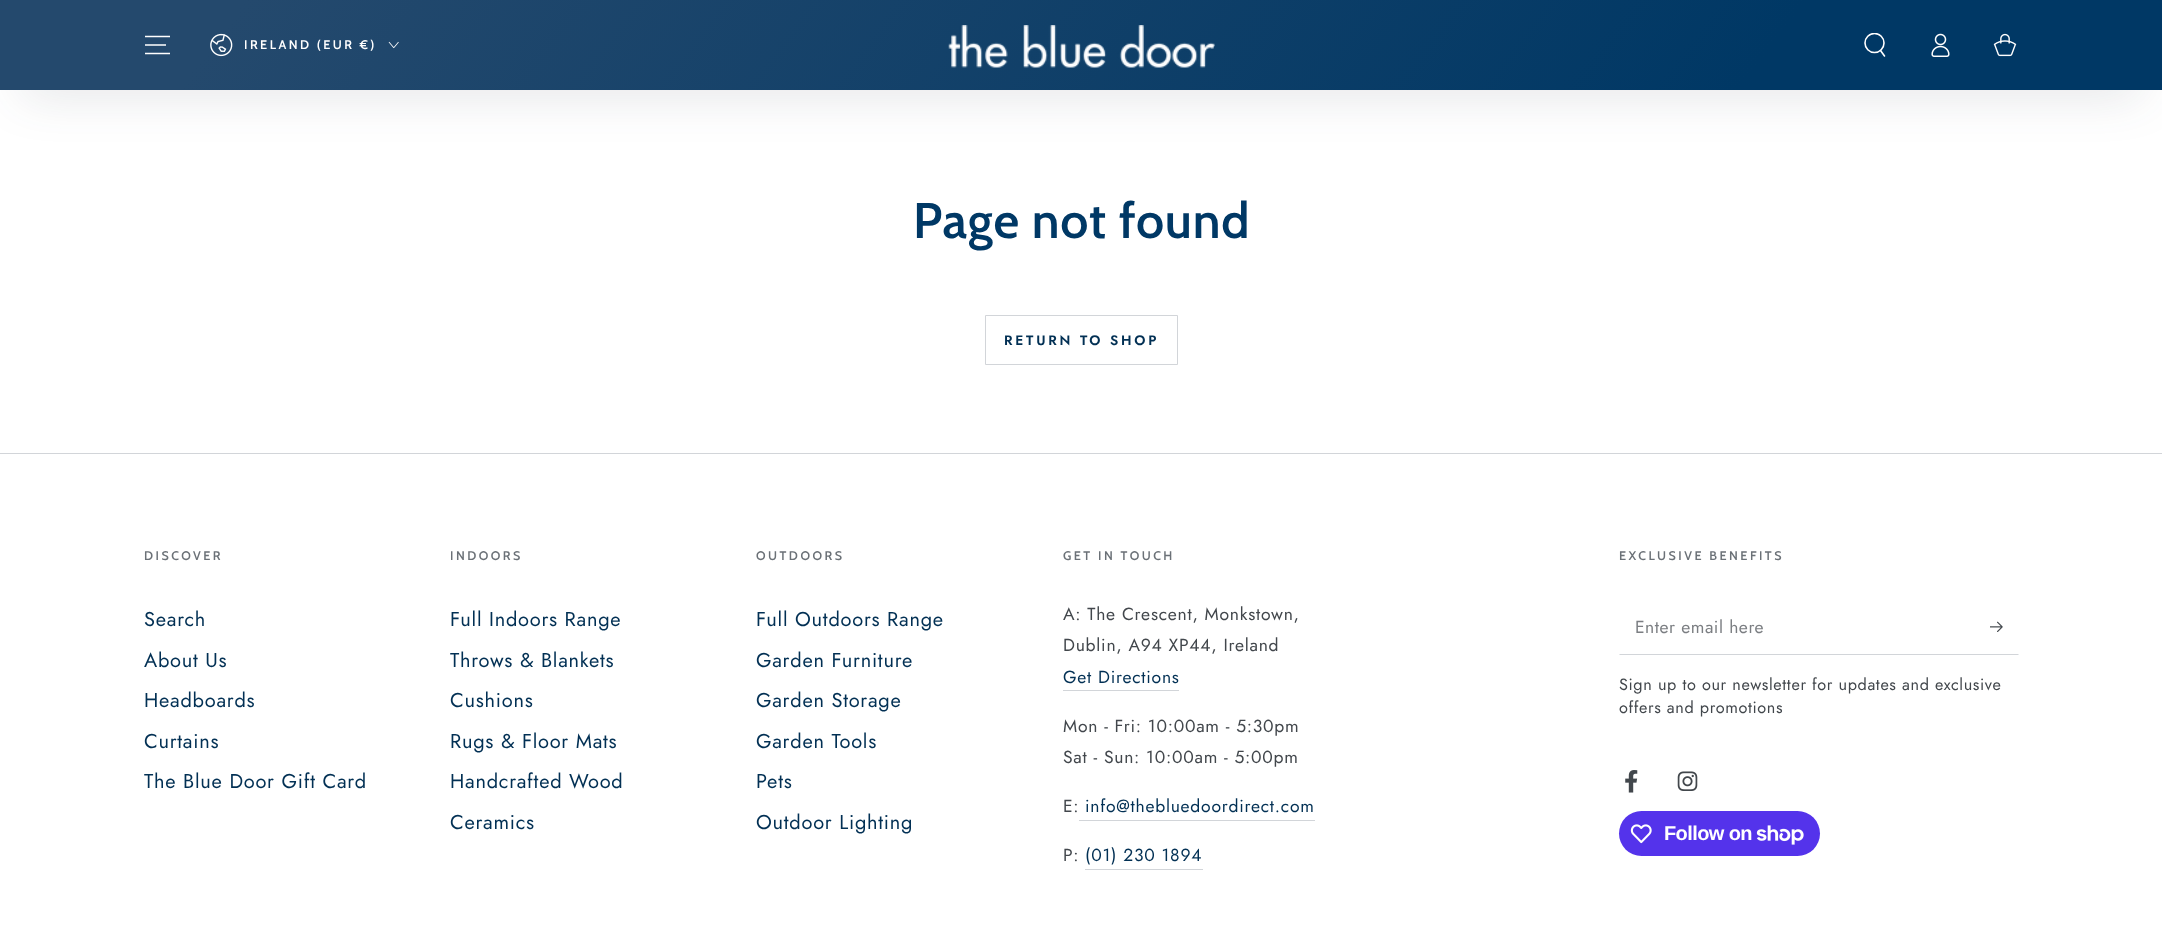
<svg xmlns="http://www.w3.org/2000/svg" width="2162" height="951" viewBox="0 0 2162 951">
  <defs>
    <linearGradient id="g1" gradientUnits="userSpaceOnUse" x1="370" y1="-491" x2="1793" y2="581"><stop offset="0.11" stop-color="#24496d"/><stop offset="0.81" stop-color="#003865"/></linearGradient>
    <clipPath id="clip1"><path d="M1863 33h25v25H1863z"/></clipPath>
  </defs>
  <rect width="100%" height="100%" fill="#fff"/>
  <rect x="19" y="65" width="2125" height="25" rx="12.5" fill="#29334133" filter="blur(25px)"/>
  <path d="M0 0h2162v90H0z" fill="url(#g1)"/>
  <path d="M145 53.5H170M145 45H166M145 36.5H170" fill="none" stroke="#fff" stroke-width="1.4"/>
  <image x="210" y="33" width="23" height="24" href="img/1.png"/>
  <image x="388" y="41" width="11" height="8" href="img/2.png"/>
  <image x="948" y="25" width="267" height="43" href="img/3.png"/>
  <g clip-path="url(#clip1)">
    <circle cx="1874.5" cy="43" r="9.5" fill="none" stroke="#fff" stroke-width="1.6"/>
  </g>
  <path d="M1880.5 50.5L1884.5 56" fill="none" stroke="#fff" stroke-width="1.6" stroke-linecap="round"/>
  <image x="1931" y="33" width="19" height="24" href="img/4.png"/>
  <image x="1993" y="33" width="24" height="24" href="img/5.png"/>
  <path d="M985.5 315.5h192v49H985.5z" fill="none" stroke="#d2d5d9"/>
  <path d="M0 453h2162v1H0z" fill="#d2d5d9"/>
  <path d="M1063 690h116v1H1063z" fill="#d2d5d9"/>
  <path d="M1079 820h236v1H1079z" fill="#d2d5d9"/>
  <path d="M1085 869h118v1H1085z" fill="#d2d5d9"/>
  <path d="M2019 655H1619L1620 654H2018Z" fill="#d2d5d9"/>
  <image x="1990" y="621" width="13" height="11" href="img/6.png"/>
  <image x="1625" y="770" width="13" height="23" href="img/7.png"/>
  <image x="1677" y="771" width="21" height="20" href="img/8.png"/>
  <rect x="1619" y="811" width="201" height="45" rx="22.5" fill="#5433eb"/>
  <image x="1630" y="824" width="22" height="20" href="img/9.png"/>
  <image x="1756" y="825" width="48" height="20" href="img/10.png"/>
  <text x="244" y="49" font-family="Cabin" font-size="12.5" font-weight="600" letter-spacing="2.5" fill="#fff">IRELAND (EUR €)</text>
  <text x="913" y="238" font-family="Cabin" font-size="50" font-weight="600" letter-spacing="0.75" fill="#003865">Page not found</text>
  <text x="1004" y="345" font-family="Jost" font-size="13.75" font-weight="600" letter-spacing="2.75" fill="#023054">RETURN TO SHOP</text>
  <text x="144" y="560" font-family="Cabin" font-size="12.5" font-weight="600" letter-spacing="2.5" fill="#6b7177">DISCOVER</text>
  <g font-family="Jost" font-size="20" letter-spacing="0.75" fill="#023054">
    <text x="144" y="626">Search</text>
    <text x="144" y="667">About Us</text>
    <text x="144" y="707">Headboards</text>
    <text x="144" y="748">Curtains</text>
    <text x="144" y="788">The Blue Door Gift Card</text>
  </g>
  <text x="450" y="560" font-family="Cabin" font-size="12.5" font-weight="600" letter-spacing="2.5" fill="#6b7177">INDOORS</text>
  <g font-family="Jost" font-size="20" letter-spacing="0.75" fill="#023054">
    <text x="450" y="626">Full Indoors Range</text>
    <text x="450" y="667">Throws &amp; Blankets</text>
    <text x="450" y="707">Cushions</text>
    <text x="450" y="748">Rugs &amp; Floor Mats</text>
    <text x="450" y="788">Handcrafted Wood</text>
    <text x="450" y="829">Ceramics</text>
  </g>
  <text x="756" y="560" font-family="Cabin" font-size="12.5" font-weight="600" letter-spacing="2.5" fill="#6b7177">OUTDOORS</text>
  <g font-family="Jost" font-size="20" letter-spacing="0.75" fill="#023054">
    <text x="756" y="626">Full Outdoors Range</text>
    <text x="756" y="667">Garden Furniture</text>
    <text x="756" y="707">Garden Storage</text>
    <text x="756" y="748">Garden Tools</text>
    <text x="756" y="788">Pets</text>
    <text x="756" y="829">Outdoor Lighting</text>
  </g>
  <text x="1063" y="560" font-family="Cabin" font-size="12.5" font-weight="600" letter-spacing="2.5" fill="#6b7177">GET IN TOUCH</text>
  <g font-family="Jost" font-size="17.5" letter-spacing="0.75" fill="#42474c">
    <text x="1063" y="620">A: The Crescent, Monkstown,</text>
    <text x="1063" y="651">Dublin, A94 XP44, Ireland</text>
  </g>
  <text x="1063" y="683" font-family="Jost" font-size="17.5" letter-spacing="0.75" fill="#023054">Get Directions</text>
  <g font-family="Jost" font-size="17.5" letter-spacing="0.75" fill="#42474c">
    <text x="1063" y="732">Mon - Fri: 10:00am - 5:30pm</text>
    <text x="1063" y="763">Sat - Sun: 10:00am - 5:00pm</text>
    <text x="1063" y="812">E:</text>
  </g>
  <text x="1085" y="812" font-family="Jost" font-size="17.5" letter-spacing="0.75" fill="#023054">info@thebluedoordirect.com</text>
  <text x="1063" y="861" font-family="Jost" font-size="17.5" letter-spacing="0.75" fill="#42474c">P:</text>
  <text x="1085" y="861" font-family="Jost" font-size="17.5" letter-spacing="0.75" fill="#023054">(01) 230 1894</text>
  <text x="1619" y="560" font-family="Cabin" font-size="12.5" font-weight="600" letter-spacing="2.5" fill="#6b7177">EXCLUSIVE BENEFITS</text>
  <text x="1635" y="633" font-family="Jost" font-size="17.5" letter-spacing="0.5" fill="#7b7e82">Enter email here</text>
  <g font-family="Jost" font-size="16.25" letter-spacing="0.62" fill="#42474c">
    <text x="1619" y="690">Sign up to our newsletter for updates and exclusive</text>
    <text x="1619" y="713">offers and promotions</text>
  </g>
  <text x="1664" y="840" font-family="Liberation Sans" font-size="20" font-weight="bold" letter-spacing="-0.6" fill="#fff">Follow on</text>
</svg>
